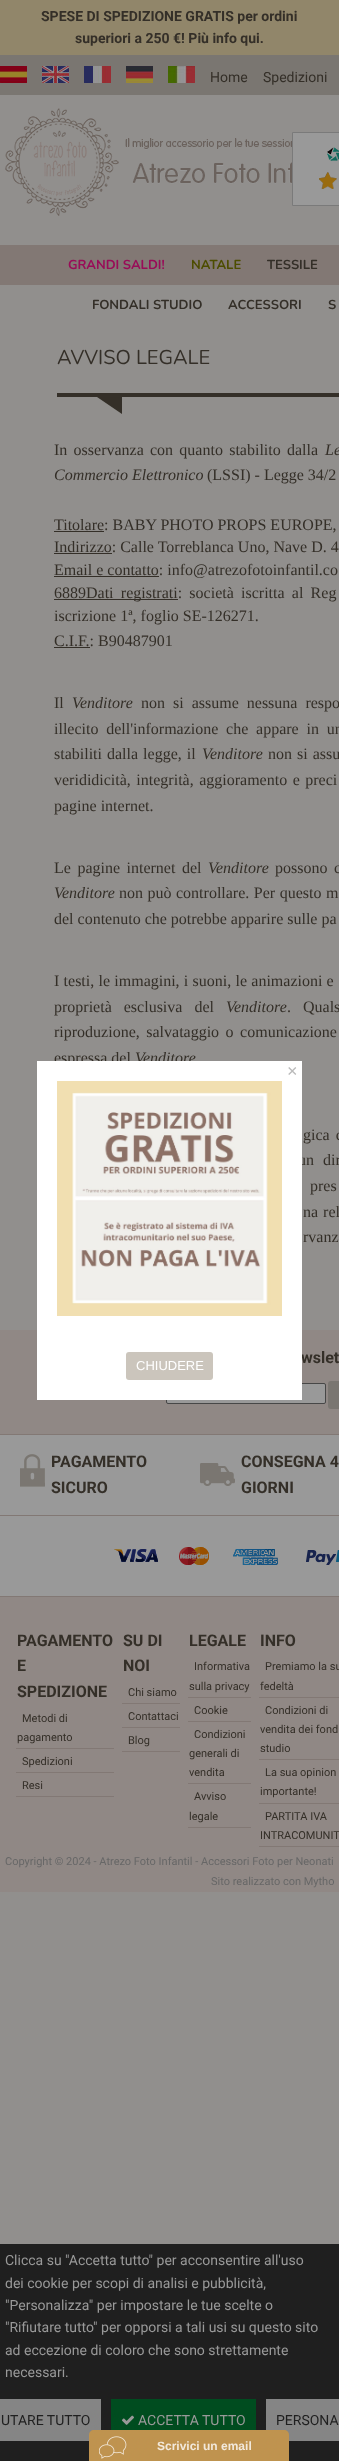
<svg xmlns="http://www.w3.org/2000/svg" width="339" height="2461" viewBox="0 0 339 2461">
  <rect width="100%" height="100%" fill="#918f8d"/>
  <path d="M0 0h339v55H0z" fill="#91866a"/>
  <path d="M0 245h339v40H0z" fill="#827874"/>
  <path d="M0 55h339v40H0z" fill="#7a7671"/>
  <image x="0" y="66" width="27" height="17" href="img/1.png"/>
  <image x="42" y="66" width="27" height="17" href="img/2.png"/>
  <image x="84" y="66" width="27" height="17" href="img/3.png"/>
  <image x="126" y="66" width="27" height="17" href="img/4.png"/>
  <image x="168" y="66" width="27" height="17" href="img/5.png"/>
  <image x="5" y="108" width="287" height="108" href="img/6.png"/>
  <path d="M292.5 132.5h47v73H292.5z" fill="#999" stroke="#7a7a7a"/>
  <image x="327" y="147" width="12" height="14" href="img/7.png"/>
  <image x="319" y="172" width="18" height="17" href="img/8.png"/>
  <image x="319" y="172" width="18" height="17" href="img/9.png"/>
  <path d="M57 393h282v4H57z" fill="#342f28"/>
  <path d="M122 397V414L97 397Z" fill="#342f28"/>
  <path d="M54 531h50v1H54z" fill="#342f28"/>
  <path d="M54 553h58v1H54z" fill="#342f28"/>
  <path d="M54 576h105v1H54z" fill="#342f28"/>
  <path d="M54 599h124v1H54z" fill="#342f28"/>
  <path d="M54 647h36v1H54z" fill="#342f28"/>
  <path d="M0 1330h339v562H0z" fill="#908885"/>
  <rect x="166.5" y="1383.5" width="159" height="20" rx="1.5" fill="#999" stroke="#474747"/>
  <rect x="328" y="1381" width="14" height="28" rx="3" fill="#7a7671"/>
  <path d="M0 1435h339v161H0z" fill="#999"/>
  <path d="M0 1434h339v1H0z" fill="#827874"/>
  <path d="M0 1515h339v1H0z" fill="#827874"/>
  <image x="20" y="1454" width="25" height="33" href="img/10.png"/>
  <image x="200" y="1463" width="35" height="23" href="img/11.png"/>
  <path d="M0 1596h339v1H0z" fill="#827874"/>
  <image x="114" y="1547" width="225" height="18" href="img/12.png"/>
  <path d="M16 1748h98v1H16z" fill="#827874"/>
  <path d="M16 1772h98v1H16z" fill="#827874"/>
  <path d="M16 1796h98v1H16z" fill="#827874"/>
  <path d="M122 1703h58v1H122z" fill="#827874"/>
  <path d="M122 1727h58v1H122z" fill="#827874"/>
  <path d="M122 1751h58v1H122z" fill="#827874"/>
  <path d="M188 1697h63v1H188z" fill="#827874"/>
  <path d="M188 1721h63v1H188z" fill="#827874"/>
  <path d="M188 1783h63v1H188z" fill="#827874"/>
  <path d="M188 1827h63v1H188z" fill="#827874"/>
  <path d="M259 1697h80v1H259z" fill="#827874"/>
  <path d="M259 1759h80v1H259z" fill="#827874"/>
  <path d="M259 1803h80v1H259z" fill="#827874"/>
  <path d="M259 1846h80v1H259z" fill="#827874"/>
  <path d="M0 2244h339v217H0z" fill="#1f1f1f"/>
  <path d="M0 2399h101v42H0z" fill="#858585"/>
  <path d="M111 2399h145v31H111z" fill="#004c1f"/>
  <image x="122" y="2415" width="12" height="10" href="img/13.png"/>
  <path d="M266 2399h73v42H266z" fill="#858585"/>
  <path d="M94 2430H284C287 2430 289 2432 289 2435V2461H89V2435C89 2432 91 2430 94 2430Z" fill="#bf934f"/>
  <image x="99" y="2436" width="28" height="23" href="img/15.png"/>
  <g font-family="Roboto" font-size="14" font-weight="bold" fill="#342f28">
    <text x="41" y="21">SPESE DI SPEDIZIONE GRATIS per ordini</text>
    <text x="75" y="43">superiori a 250 €! Più info qui.</text>
  </g>
  <g font-family="Roboto" font-size="14" fill="#342f28">
    <text x="210" y="82">Home</text>
    <text x="263" y="82">Spedizioni</text>
  </g>
  <text x="68" y="269" font-family="Nunito" font-size="13" font-weight="bold" fill="#990c58">GRANDI SALDI!</text>
  <text x="191" y="269" font-family="Nunito" font-size="13" font-weight="bold" fill="#4d4d00">NATALE</text>
  <g font-family="Nunito" font-size="13" font-weight="bold" fill="#342f28">
    <text x="267" y="269">TESSILE</text>
    <text x="92" y="309">FONDALI STUDIO</text>
    <text x="228" y="309">ACCESSORI</text>
    <text x="328" y="309">S</text>
  </g>
  <text x="57" y="364" font-family="Nunito" font-size="20" fill="#342f28">AVVISO LEGALE</text>
  <text x="54" y="455" word-spacing="2.25" font-family="Liberation Serif" font-size="16" fill="#342f28">In osservanza con quanto stabilito dalla</text>
  <g font-family="Liberation Serif" font-size="16" font-style="italic" fill="#342f28">
    <text x="325" y="455" word-spacing="2.25">Le</text>
    <text x="54" y="480">Commercio Elettronico</text>
  </g>
  <g font-family="Liberation Serif" font-size="16" fill="#342f28">
    <text x="207" y="480">(LSSI) - Legge 34/2</text>
    <text x="54" y="530">Titolare: BABY PHOTO PROPS EUROPE,</text>
    <text x="54" y="552">Indirizzo: Calle Torreblanca Uno, Nave D. 4</text>
    <text x="54" y="575">Email e contatto: info@atrezofotoinfantil.co</text>
    <text x="54" y="598" word-spacing="3.25">6889Dati registrati: società iscritta al Reg</text>
    <text x="54" y="621">iscrizione 1ª, foglio SE-126271.</text>
    <text x="54" y="646">C.I.F.: B90487901</text>
    <text x="54" y="708">Il</text>
  </g>
  <text x="72" y="708" font-family="Liberation Serif" font-size="16" font-style="italic" fill="#342f28">Venditore</text>
  <g font-family="Liberation Serif" font-size="16" fill="#342f28">
    <text x="141" y="708" word-spacing="4">non si assume nessuna respo</text>
    <text x="54" y="734" word-spacing="3.75">illecito dell'informazione che appare in un</text>
    <text x="54" y="759" word-spacing="1">stabiliti dalla legge, il</text>
  </g>
  <text x="202" y="759" font-family="Liberation Serif" font-size="16" font-style="italic" fill="#342f28">Venditore</text>
  <g font-family="Liberation Serif" font-size="16" fill="#342f28">
    <text x="268" y="759" word-spacing="1">non si assu</text>
    <text x="54" y="785" word-spacing="1.5">verididicità, integrità, aggioramento e preci</text>
    <text x="54" y="811">pagine internet.</text>
    <text x="54" y="873" word-spacing="2.5">Le pagine internet del</text>
  </g>
  <text x="208" y="873" font-family="Liberation Serif" font-size="16" font-style="italic" fill="#342f28">Venditore</text>
  <text x="275" y="873" word-spacing="2.5" font-family="Liberation Serif" font-size="16" fill="#342f28">possono c</text>
  <text x="54" y="898" font-family="Liberation Serif" font-size="16" font-style="italic" fill="#342f28">Venditore</text>
  <g font-family="Liberation Serif" font-size="16" fill="#342f28">
    <text x="119" y="898" word-spacing="0.5">non può controllare. Per questo m</text>
    <text x="54" y="924">del contenuto che potrebbe apparire sulle pa</text>
    <text x="54" y="986" word-spacing="0.25">I testi, le immagini, i suoni, le animazioni e</text>
    <text x="54" y="1012" word-spacing="8">proprietà esclusiva del</text>
  </g>
  <text x="226" y="1012" font-family="Liberation Serif" font-size="16" font-style="italic" fill="#342f28">Venditore</text>
  <g font-family="Liberation Serif" font-size="16" fill="#342f28">
    <text x="287" y="1012" word-spacing="8">. Quals</text>
    <text x="54" y="1037" word-spacing="2.5">riproduzione, salvataggio o comunicazione</text>
    <text x="54" y="1063">espressa del</text>
  </g>
  <text x="135" y="1063" font-family="Liberation Serif" font-size="16" font-style="italic" fill="#342f28">Venditore</text>
  <g font-family="Liberation Serif" font-size="16" fill="#342f28">
    <text x="303" y="1140" word-spacing="2">gica c</text>
    <text x="298" y="1165" word-spacing="5">un dir</text>
    <text x="310" y="1191" word-spacing="3">pres</text>
    <text x="303" y="1217" word-spacing="1">na rel</text>
    <text x="303" y="1242">rvanz</text>
  </g>
  <g font-family="Roboto" font-size="16" font-weight="bold" fill="#342f28">
    <text x="301" y="1363">wslet</text>
    <text x="51" y="1467">PAGAMENTO</text>
    <text x="51" y="1493">SICURO</text>
    <text x="241" y="1467">CONSEGNA 4</text>
    <text x="241" y="1493">GIORNI</text>
    <text x="17" y="1646">PAGAMENTO</text>
    <text x="17" y="1671">E</text>
    <text x="17" y="1697">SPEDIZIONE</text>
  </g>
  <g font-family="Roboto" font-size="11" fill="#342f28">
    <text x="22" y="1722">Metodi di</text>
    <text x="17" y="1741">pagamento</text>
    <text x="22" y="1765">Spedizioni</text>
    <text x="22" y="1789">Resi</text>
  </g>
  <g font-family="Roboto" font-size="16" font-weight="bold" fill="#342f28">
    <text x="123" y="1646">SU DI</text>
    <text x="123" y="1671">NOI</text>
  </g>
  <g font-family="Roboto" font-size="11" fill="#342f28">
    <text x="128" y="1696">Chi siamo</text>
    <text x="128" y="1720">Contattaci</text>
    <text x="128" y="1744">Blog</text>
  </g>
  <text x="189" y="1646" font-family="Roboto" font-size="16" font-weight="bold" fill="#342f28">LEGALE</text>
  <g font-family="Roboto" font-size="11" fill="#342f28">
    <text x="194" y="1670">Informativa</text>
    <text x="189" y="1690">sulla privacy</text>
    <text x="194" y="1714">Cookie</text>
    <text x="194" y="1738">Condizioni</text>
    <text x="189" y="1757">generali di</text>
    <text x="189" y="1776">vendita</text>
    <text x="194" y="1800">Avviso</text>
    <text x="189" y="1820">legale</text>
  </g>
  <text x="260" y="1646" font-family="Roboto" font-size="16" font-weight="bold" fill="#342f28">INFO</text>
  <g font-family="Roboto" font-size="11" fill="#342f28">
    <text x="265" y="1670">Premiamo la su</text>
    <text x="260" y="1690">fedeltà</text>
    <text x="265" y="1714">Condizioni di</text>
    <text x="260" y="1733">vendita dei fond</text>
    <text x="260" y="1752">studio</text>
    <text x="265" y="1776">La sua opinion</text>
    <text x="260" y="1795">importante!</text>
    <text x="265" y="1820">PARTITA IVA</text>
    <text x="260" y="1839">INTRACOMUNIT</text>
  </g>
  <g font-family="Roboto" font-size="11" fill="#676767">
    <text x="5" y="1865">Copyright © 2024 - Atrezo Foto Infantil - Accessori Foto per Neonati</text>
    <text x="211" y="1885">Sito realizzato con Mytho</text>
  </g>
  <g font-family="Roboto" font-size="14" fill="#999">
    <text x="5" y="2265">Clicca su "Accetta tutto" per acconsentire all'uso</text>
    <text x="5" y="2288">dei cookie per scopi di analisi e pubblicità,</text>
    <text x="5" y="2310">"Personalizza" per impostare le tue scelte o</text>
    <text x="5" y="2332">"Rifiutare tutto" per opporsi a tali usi su questo sito</text>
    <text x="5" y="2355">ad eccezione di coloro che sono strettamente</text>
    <text x="5" y="2377">necessari.</text>
  </g>
  <text x="1" y="2425" font-family="Roboto" font-size="14" fill="#1f1f1f">UTARE TUTTO</text>
  <text x="138" y="2425" font-family="Roboto" font-size="14" fill="#999">ACCETTA TUTTO</text>
  <text x="276" y="2425" font-family="Roboto" font-size="14" fill="#1f1f1f">PERSONA</text>
  <path d="M37 1061h265v339H37z" fill="#fff"/>
  <text x="287" y="1077" font-family="Liberation Sans" font-size="18" fill="#bbb">×</text>
  <image x="57" y="1081" width="225" height="235" href="img/14.png"/>
  <rect x="126" y="1352" width="87" height="28" rx="3" fill="#cbc5bc"/>
  <text x="136" y="1370" font-family="Liberation Sans" font-size="13" fill="#fff">CHIUDERE</text>
  <text x="157" y="2450" font-family="Liberation Sans" font-size="12" font-weight="bold" fill="#f2e9dc">Scrivici un email</text>
</svg>
